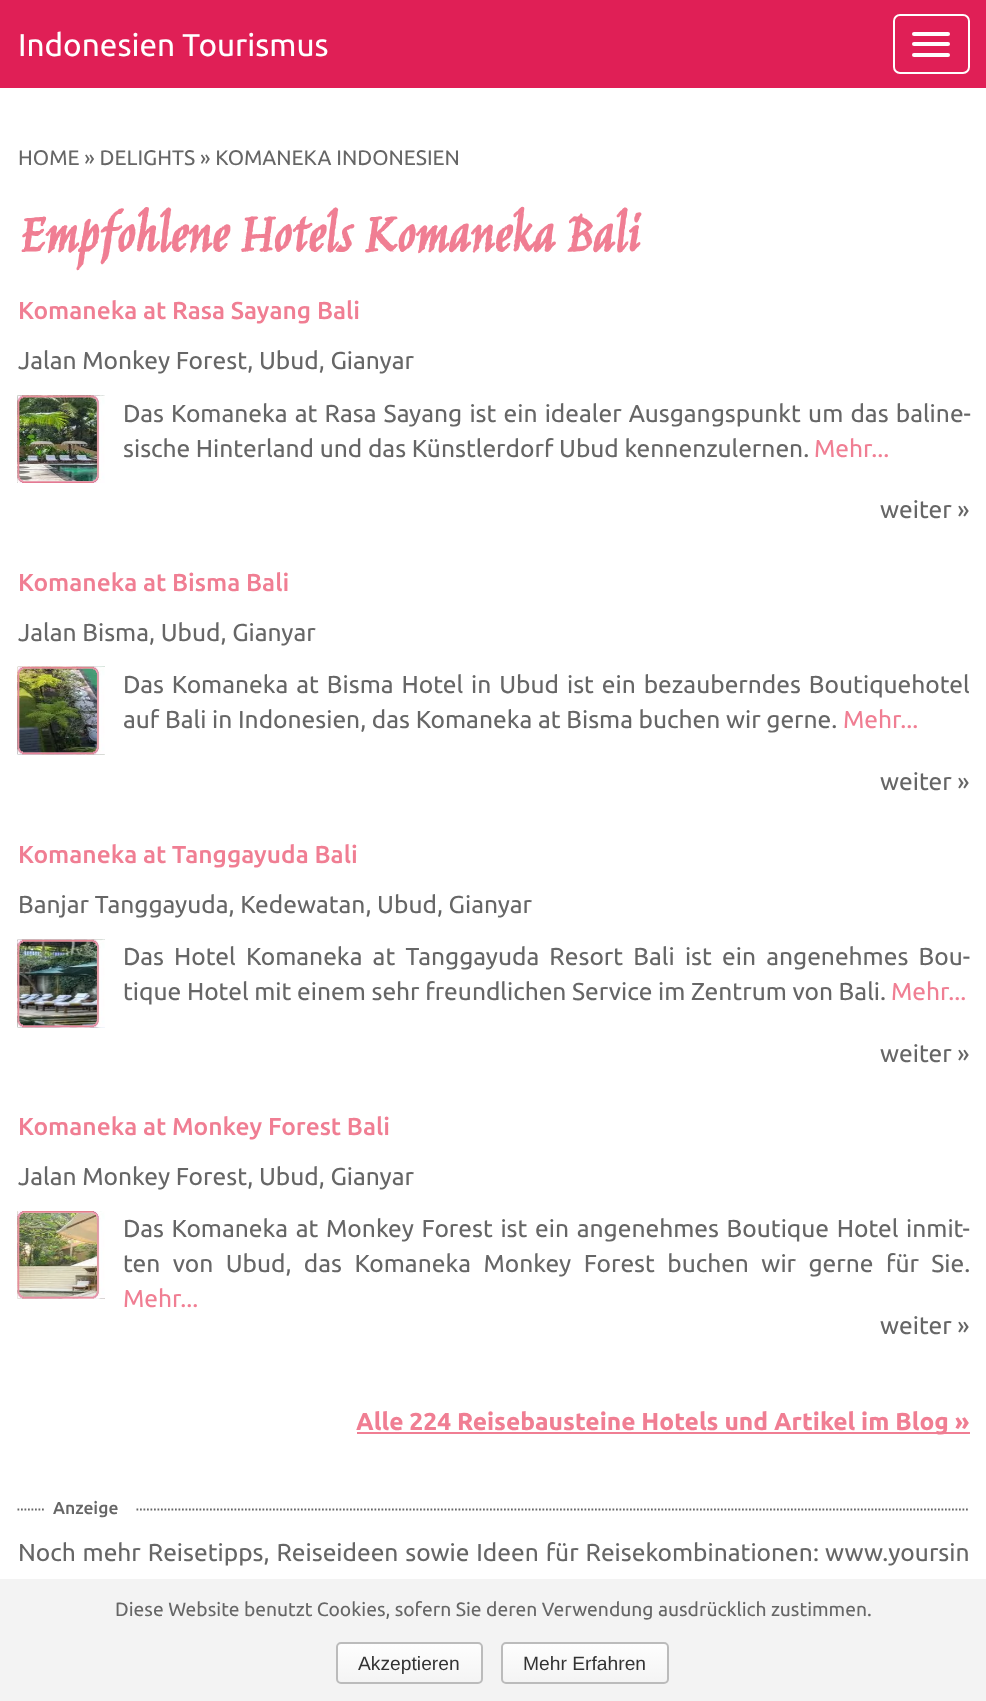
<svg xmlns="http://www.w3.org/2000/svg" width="986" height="1701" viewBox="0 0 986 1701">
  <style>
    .t1 { font: 31.5px Ubuntu; fill: #fff; }
    .t2 { font: 21px Ubuntu; fill: #666; }
    .t3 { font: bold 59.5px Jim Nightshade; fill: #f07e93; }
    .t4 { font: 500 24.5px Ubuntu; fill: #f07e93; }
    .t5 { font: 24.5px Ubuntu; fill: #666; }
    .t6 { font: 24.5px Ubuntu; fill: #f07e93; }
    .t7 { font: bold 24.5px Ubuntu; fill: #f07e93; }
    .t8 { font: 500 17.5px Ubuntu; fill: #666; }
    .t9 { font: 19.25px Ubuntu; fill: #666; }
    .t10 { font: 19.25px Liberation Sans; fill: #333; }
  </style>
  <defs>
    <clipPath id="clip1"><rect x="336" y="1642" width="147" height="42" rx="5"/></clipPath>
    <linearGradient id="g1" gradientUnits="userSpaceOnUse" x1="410" y1="1643" x2="410" y2="1682"><stop offset="0" stop-color="#fefefe"/><stop offset="1" stop-color="#f4f4f4"/></linearGradient>
    <clipPath id="clip2"><rect x="501" y="1642" width="168" height="42" rx="5"/></clipPath>
    <linearGradient id="g2" gradientUnits="userSpaceOnUse" x1="585" y1="1643" x2="585" y2="1682"><stop offset="0" stop-color="#fefefe"/><stop offset="1" stop-color="#f4f4f4"/></linearGradient>
  </defs>
  <rect width="100%" height="100%" fill="#fff"/>
  <rect x="0" y="0" width="986" height="88" fill="#e01f56"/>
  <text x="18" y="56" class="t1">Indonesien Tourismus</text>
  <rect x="894" y="15" width="75" height="58" rx="6" fill="none" stroke="#fff" stroke-width="2"/>
  <rect x="912" y="32" width="38" height="4" rx="2" fill="#fff"/>
  <rect x="912" y="42" width="38" height="4" rx="2" fill="#fff"/>
  <rect x="912" y="53" width="38" height="4" rx="2" fill="#fff"/>
  <text x="18" y="165" class="t2">HOME » DELIGHTS » KOMANEKA INDONESIEN</text>
  <text x="18" y="251" class="t3">Empfohlene Hotels Komaneka Bali</text>
  <text x="18" y="319" class="t4">Komaneka at Rasa Sayang Bali</text>
  <text x="18" y="369" class="t5">Jalan Monkey Forest, Ubud, Gianyar</text>
  <image x="17" y="395" width="88" height="88" href="images/1.png"/>
  <image x="17" y="395" width="88" height="88" href="images/2.png"/>
  <text x="123" y="422" word-spacing="1.5" class="t5">Das Komaneka at Rasa Sayang ist ein idealer Ausgangspunkt um das baline-</text>
  <text x="123" y="457" class="t5">sische Hinterland und das Künstlerdorf Ubud kennenzulernen.</text>
  <text x="814" y="457" class="t6">Mehr...</text>
  <text x="880" y="518" class="t5">weiter »</text>
  <text x="18" y="591" class="t4">Komaneka at Bisma Bali</text>
  <text x="18" y="641" class="t5">Jalan Bisma, Ubud, Gianyar</text>
  <image x="17" y="666" width="88" height="89" href="images/3.png"/>
  <image x="17" y="666" width="88" height="89" href="images/4.png"/>
  <text x="123" y="693" word-spacing="2.25" class="t5">Das Komaneka at Bisma Hotel in Ubud ist ein bezauberndes Boutiquehotel</text>
  <text x="123" y="728" class="t5">auf Bali in Indonesien, das Komaneka at Bisma buchen wir gerne.</text>
  <text x="843" y="728" class="t6">Mehr...</text>
  <text x="880" y="790" class="t5">weiter »</text>
  <text x="18" y="863" class="t4">Komaneka at Tanggayuda Bali</text>
  <text x="18" y="913" class="t5">Banjar Tanggayuda, Kedewatan, Ubud, Gianyar</text>
  <image x="17" y="939" width="88" height="89" href="images/5.png"/>
  <image x="17" y="939" width="88" height="89" href="images/6.png"/>
  <text x="123" y="965" word-spacing="4.5" class="t5">Das Hotel Komaneka at Tanggayuda Resort Bali ist ein angenehmes Bou-</text>
  <text x="123" y="1000" class="t5">tique Hotel mit einem sehr freundlichen Service im Zentrum von Bali.</text>
  <text x="891" y="1000" class="t6">Mehr...</text>
  <text x="880" y="1062" class="t5">weiter »</text>
  <text x="18" y="1135" class="t4">Komaneka at Monkey Forest Bali</text>
  <text x="18" y="1185" class="t5">Jalan Monkey Forest, Ubud, Gianyar</text>
  <image x="17" y="1211" width="88" height="88" href="images/7.png"/>
  <image x="17" y="1211" width="88" height="88" href="images/8.png"/>
  <text x="123" y="1237" word-spacing="2" class="t5">Das Komaneka at Monkey Forest ist ein angenehmes Boutique Hotel inmit-</text>
  <text x="123" y="1272" word-spacing="6.75" class="t5">ten von Ubud, das Komaneka Monkey Forest buchen wir gerne für Sie.</text>
  <text x="123" y="1307" class="t6">Mehr...</text>
  <text x="880" y="1334" class="t5">weiter »</text>
  <rect x="357" y="1432" width="613" height="2" fill="#f07e93"/>
  <text x="356" y="1430" class="t7">Alle 224 Reisebausteine Hotels und Artikel im Blog »</text>
  <path d="M17.5 1509.5H969.5" fill="none" stroke="#666" stroke-width="1.8" stroke-dasharray="1.75 1.75"/>
  <rect x="45" y="1508" width="90" height="3" fill="#fff"/>
  <text x="53" y="1514" class="t8">Anzeige</text>
  <text x="18" y="1561" word-spacing="1.25" class="t5">Noch mehr Reisetipps, Reiseideen sowie Ideen für Reisekombinationen:</text>
  <text x="825" y="1561" class="t5">www.yoursin</text>
  <rect x="0" y="1579" width="986" height="122" fill="#f3f3f3"/>
  <text x="115" y="1616" class="t9">Diese Website benutzt Cookies, sofern Sie deren Verwendung ausdrücklich zustimmen.</text>
  <g clip-path="url(#clip1)">
    <rect x="336" y="1643" width="147" height="39" fill="url(#g1)"/>
  </g>
  <rect x="337" y="1643" width="145" height="40" rx="4" fill="none" stroke="#bbb" stroke-width="2"/>
  <text x="358" y="1670" class="t10">Akzeptieren</text>
  <g clip-path="url(#clip2)">
    <rect x="501" y="1643" width="168" height="39" fill="url(#g2)"/>
  </g>
  <rect x="502" y="1643" width="166" height="40" rx="4" fill="none" stroke="#bbb" stroke-width="2"/>
  <text x="523" y="1670" class="t10">Mehr Erfahren</text>
</svg>
